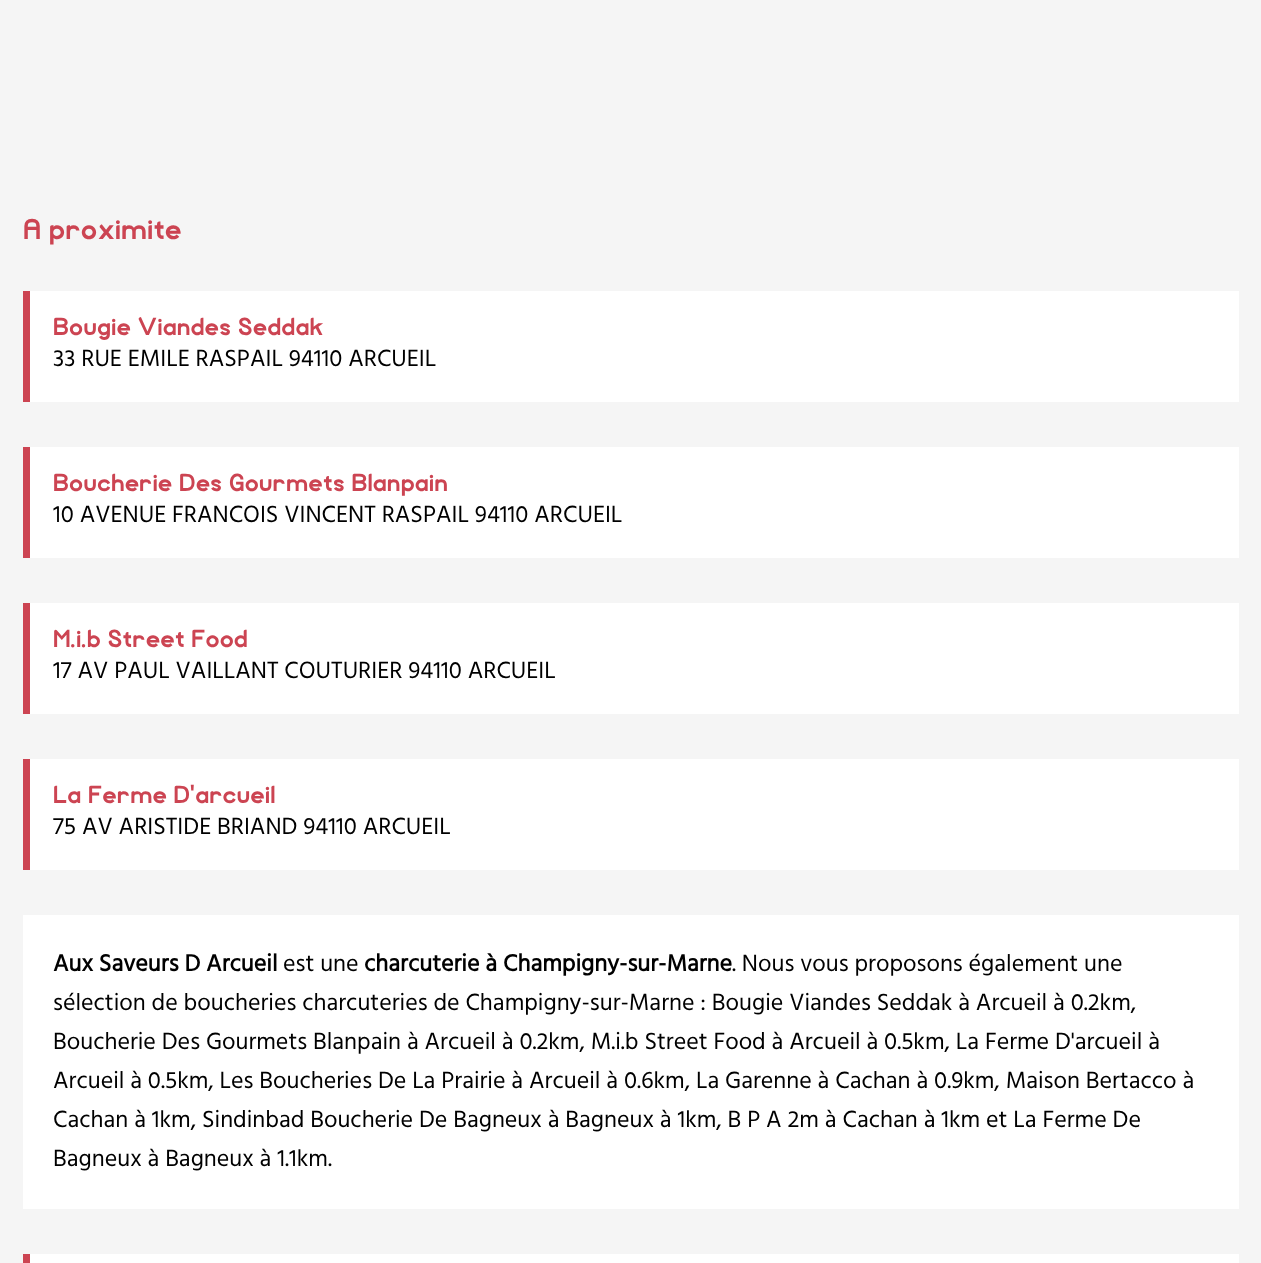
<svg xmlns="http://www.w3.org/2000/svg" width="1261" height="1263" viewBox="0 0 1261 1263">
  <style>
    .t1 { font: bold 28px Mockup; fill: #cc4452; }
    .t2 { font: bold 24px Mockup; fill: #cc4452; }
    .t3 { font: 24px Hind; fill: #000; }
    .t4 { font: bold 24px Hind; fill: #000; }
  </style>
  <rect width="100%" height="100%" fill="#f5f5f5"/>
  <text x="23" y="239" class="t1">A proximite</text>
  <rect x="30" y="291" width="1209" height="111" fill="#fff"/>
  <rect x="23" y="291" width="7" height="111" fill="#cc4452"/>
  <text x="53" y="335" class="t2">Bougie Viandes Seddak</text>
  <text x="53" y="366" class="t3">33 RUE EMILE RASPAIL 94110 ARCUEIL</text>
  <rect x="30" y="447" width="1209" height="111" fill="#fff"/>
  <rect x="23" y="447" width="7" height="111" fill="#cc4452"/>
  <text x="53" y="491" class="t2">Boucherie Des Gourmets Blanpain</text>
  <text x="53" y="522" class="t3">10 AVENUE FRANCOIS VINCENT RASPAIL 94110 ARCUEIL</text>
  <rect x="30" y="603" width="1209" height="111" fill="#fff"/>
  <rect x="23" y="603" width="7" height="111" fill="#cc4452"/>
  <text x="53" y="647" class="t2">M.i.b Street Food</text>
  <text x="53" y="678" class="t3">17 AV PAUL VAILLANT COUTURIER 94110 ARCUEIL</text>
  <rect x="30" y="759" width="1209" height="111" fill="#fff"/>
  <rect x="23" y="759" width="7" height="111" fill="#cc4452"/>
  <text x="53" y="803" class="t2">La Ferme D'arcueil</text>
  <text x="53" y="834" class="t3">75 AV ARISTIDE BRIAND 94110 ARCUEIL</text>
  <rect x="23" y="915" width="1216" height="294" fill="#fff"/>
  <text x="53" y="971" class="t4">Aux Saveurs D Arcueil</text>
  <text x="283" y="971" class="t3">est une</text>
  <text x="364" y="971" class="t4">charcuterie à Champigny-sur-Marne</text>
  <text x="732" y="971" class="t3">. Nous vous proposons également une</text>
  <text x="53" y="1010" class="t3">sélection de boucheries charcuteries de Champigny-sur-Marne : Bougie Viandes Seddak à Arcueil à 0.2km,</text>
  <text x="53" y="1049" class="t3">Boucherie Des Gourmets Blanpain à Arcueil à 0.2km, M.i.b Street Food à Arcueil à 0.5km, La Ferme D'arcueil à</text>
  <text x="53" y="1088" class="t3">Arcueil à 0.5km, Les Boucheries De La Prairie à Arcueil à 0.6km, La Garenne à Cachan à 0.9km, Maison Bertacco à</text>
  <text x="53" y="1127" class="t3">Cachan à 1km, Sindinbad Boucherie De Bagneux à Bagneux à 1km, B P A 2m à Cachan à 1km et La Ferme De</text>
  <text x="53" y="1166" class="t3">Bagneux à Bagneux à 1.1km.</text>
  <rect x="30" y="1254" width="1209" height="9" fill="#fff"/>
  <rect x="23" y="1254" width="7" height="9" fill="#cc4452"/>
</svg>
